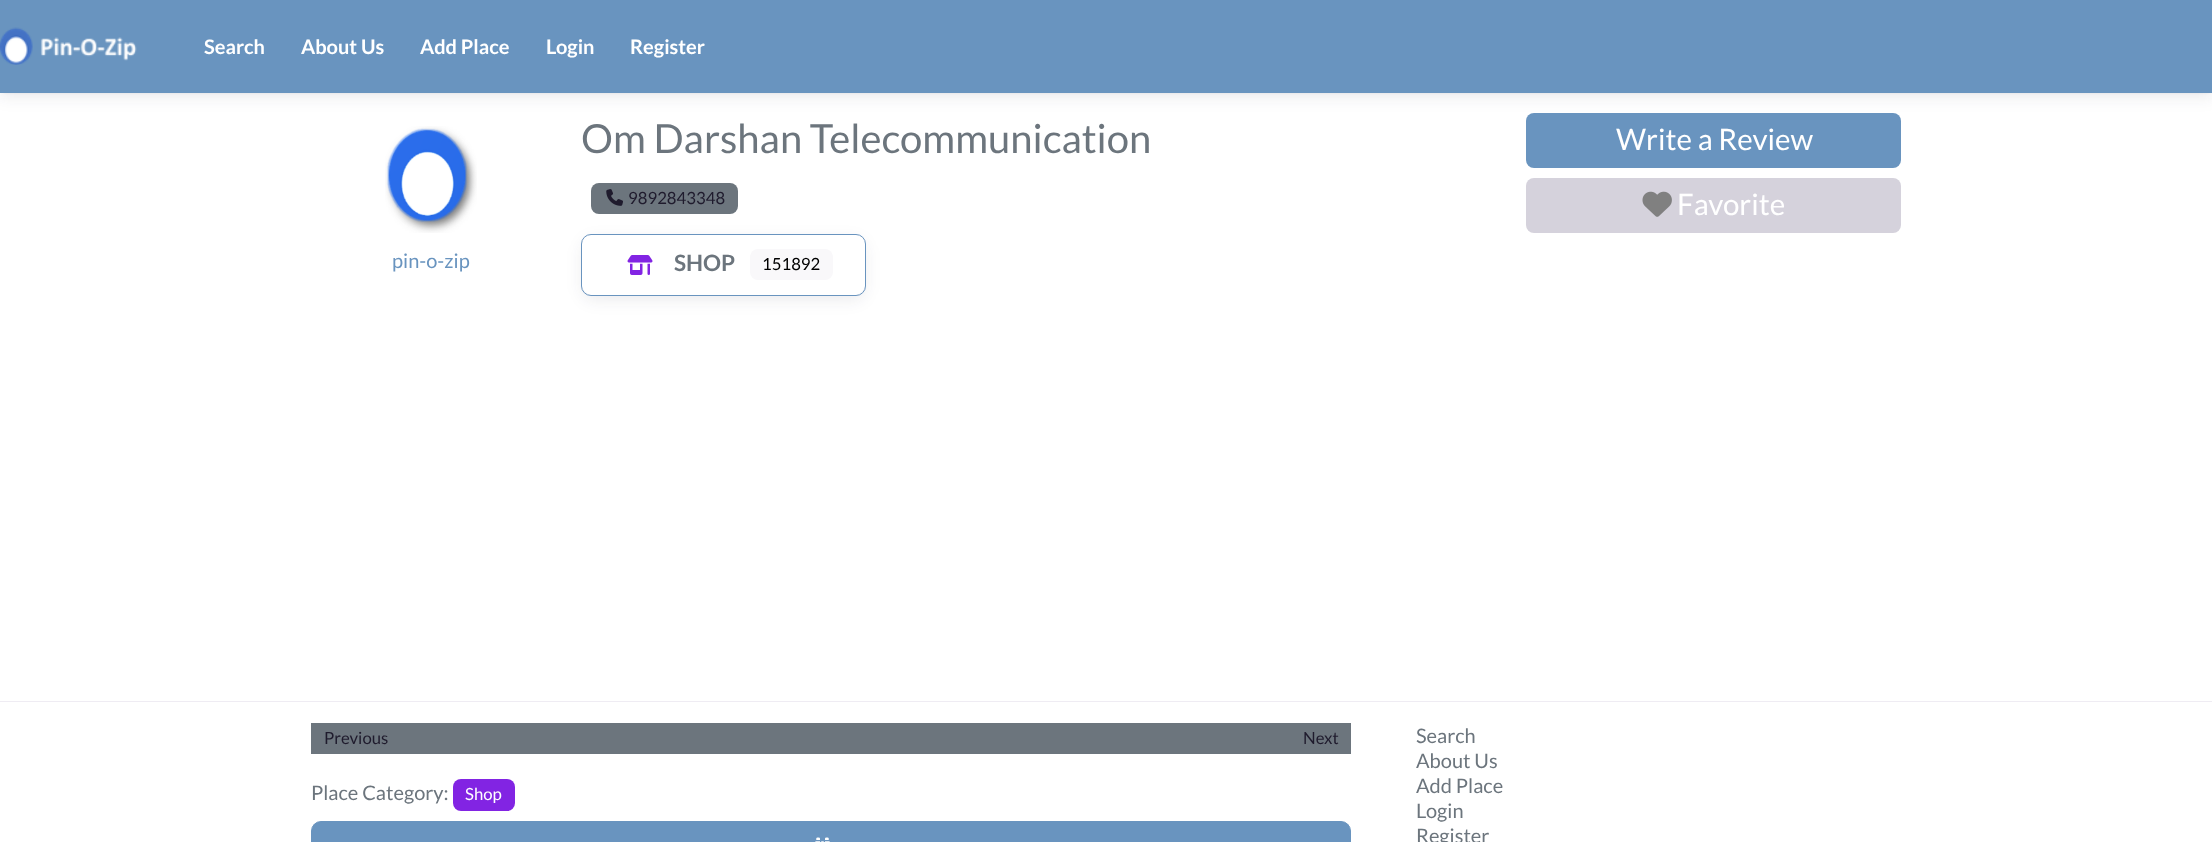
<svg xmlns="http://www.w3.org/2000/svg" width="2212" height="842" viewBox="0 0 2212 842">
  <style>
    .t1 { font: bold 20px Lato; fill: #fff; }
    .t2 { font: 40px Lato; fill: #6c757d; }
    .t3 { font: 16.75px Lato; fill: #1f1b2d; }
    .t4 { font: bold 22.5px Lato; fill: #6c757d; }
    .t5 { font: 16.75px Lato; fill: #000; }
    .t6 { font: 29.5px Lato; fill: #fff; }
    .t7 { font: 20px Lato; fill: #6994bf; }
    .t8 { font: 20px Lato; fill: #6c757d; }
    .t9 { font: 16.75px Lato; fill: #fff; }
  </style>
  <defs>
    <clipPath id="clip1"><path d="M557 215H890V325H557ZM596 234H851C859.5 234 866 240.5 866 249V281C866 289.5 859.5 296 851 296H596C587.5 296 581 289.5 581 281V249C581 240.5 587.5 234 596 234Z" clip-rule="evenodd"/></clipPath>
  </defs>
  <rect width="100%" height="100%" fill="#fff"/>
  <rect x="0" y="5" width="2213" height="93" fill="#1f1b2d14" filter="blur(7.5px)"/>
  <rect x="3" y="5" width="2207" height="88" fill="#1f1b2d14" filter="blur(1px)"/>
  <rect x="0" y="0" width="2212" height="93" fill="#6994bf"/>
  <image x="0" y="27" width="137" height="38" href="images/1.png"/>
  <text x="204" y="54" class="t1">Search</text>
  <text x="301" y="54" class="t1">About Us</text>
  <text x="420" y="54" class="t1">Add Place</text>
  <text x="546" y="54" class="t1">Login</text>
  <text x="630" y="54" class="t1">Register</text>
  <rect x="0" y="701" width="2212" height="1" fill="#efecf3"/>
  <text x="581" y="153" class="t2">Om Darshan Telecommunication</text>
  <rect x="591" y="183" width="147" height="31" rx="8" fill="#6c757d"/>
  <image x="606" y="189" width="17" height="17" href="images/2.png"/>
  <text x="628" y="204" class="t3">9892843348</text>
  <g clip-path="url(#clip1)">
    <rect x="581" y="239" width="285" height="62" rx="15" fill="#1f1b2d14" filter="blur(7.5px)"/>
  </g>
  <rect x="581.5" y="234.5" width="284" height="61" rx="9.5" fill="none" stroke="#6994bf"/>
  <image x="627" y="255" width="26" height="20" href="images/3.png"/>
  <text x="674" y="271" class="t4">SHOP</text>
  <rect x="750" y="249" width="83" height="31" rx="8" fill="#f9f8fa"/>
  <text x="762" y="270" class="t5">151892</text>
  <rect x="1526" y="113" width="375" height="55" rx="8" fill="#6994bf"/>
  <text x="1616" y="150" class="t6">Write a Review</text>
  <rect x="1526" y="178" width="375" height="55" rx="8" fill="#d5d2dc"/>
  <image x="1642" y="191" width="30" height="26" href="images/4.png"/>
  <text x="1677" y="215" class="t6">Favorite</text>
  <image x="385" y="126" width="92" height="107" href="images/5.png"/>
  <text x="392" y="268" class="t7">pin-o-zip</text>
  <rect x="311" y="723" width="1040" height="31" fill="#6c757d"/>
  <text x="324" y="744" class="t3">Previous</text>
  <text x="1303" y="744" class="t3">Next</text>
  <text x="311" y="800" class="t8">Place Category:</text>
  <rect x="453" y="779" width="62" height="32" rx="8" fill="#8224e3"/>
  <text x="465" y="800" class="t9">Shop</text>
  <rect x="311.5" y="821.5" width="1039" height="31" rx="9.5" fill="#6994bf" stroke="#6994bf"/>
  <image x="815" y="837" width="15" height="5" href="images/6.png"/>
  <text x="1416" y="743" class="t8">Search</text>
  <text x="1416" y="768" class="t8">About Us</text>
  <text x="1416" y="793" class="t8">Add Place</text>
  <text x="1416" y="818" class="t8">Login</text>
  <text x="1416" y="843" class="t8">Register</text>
</svg>
